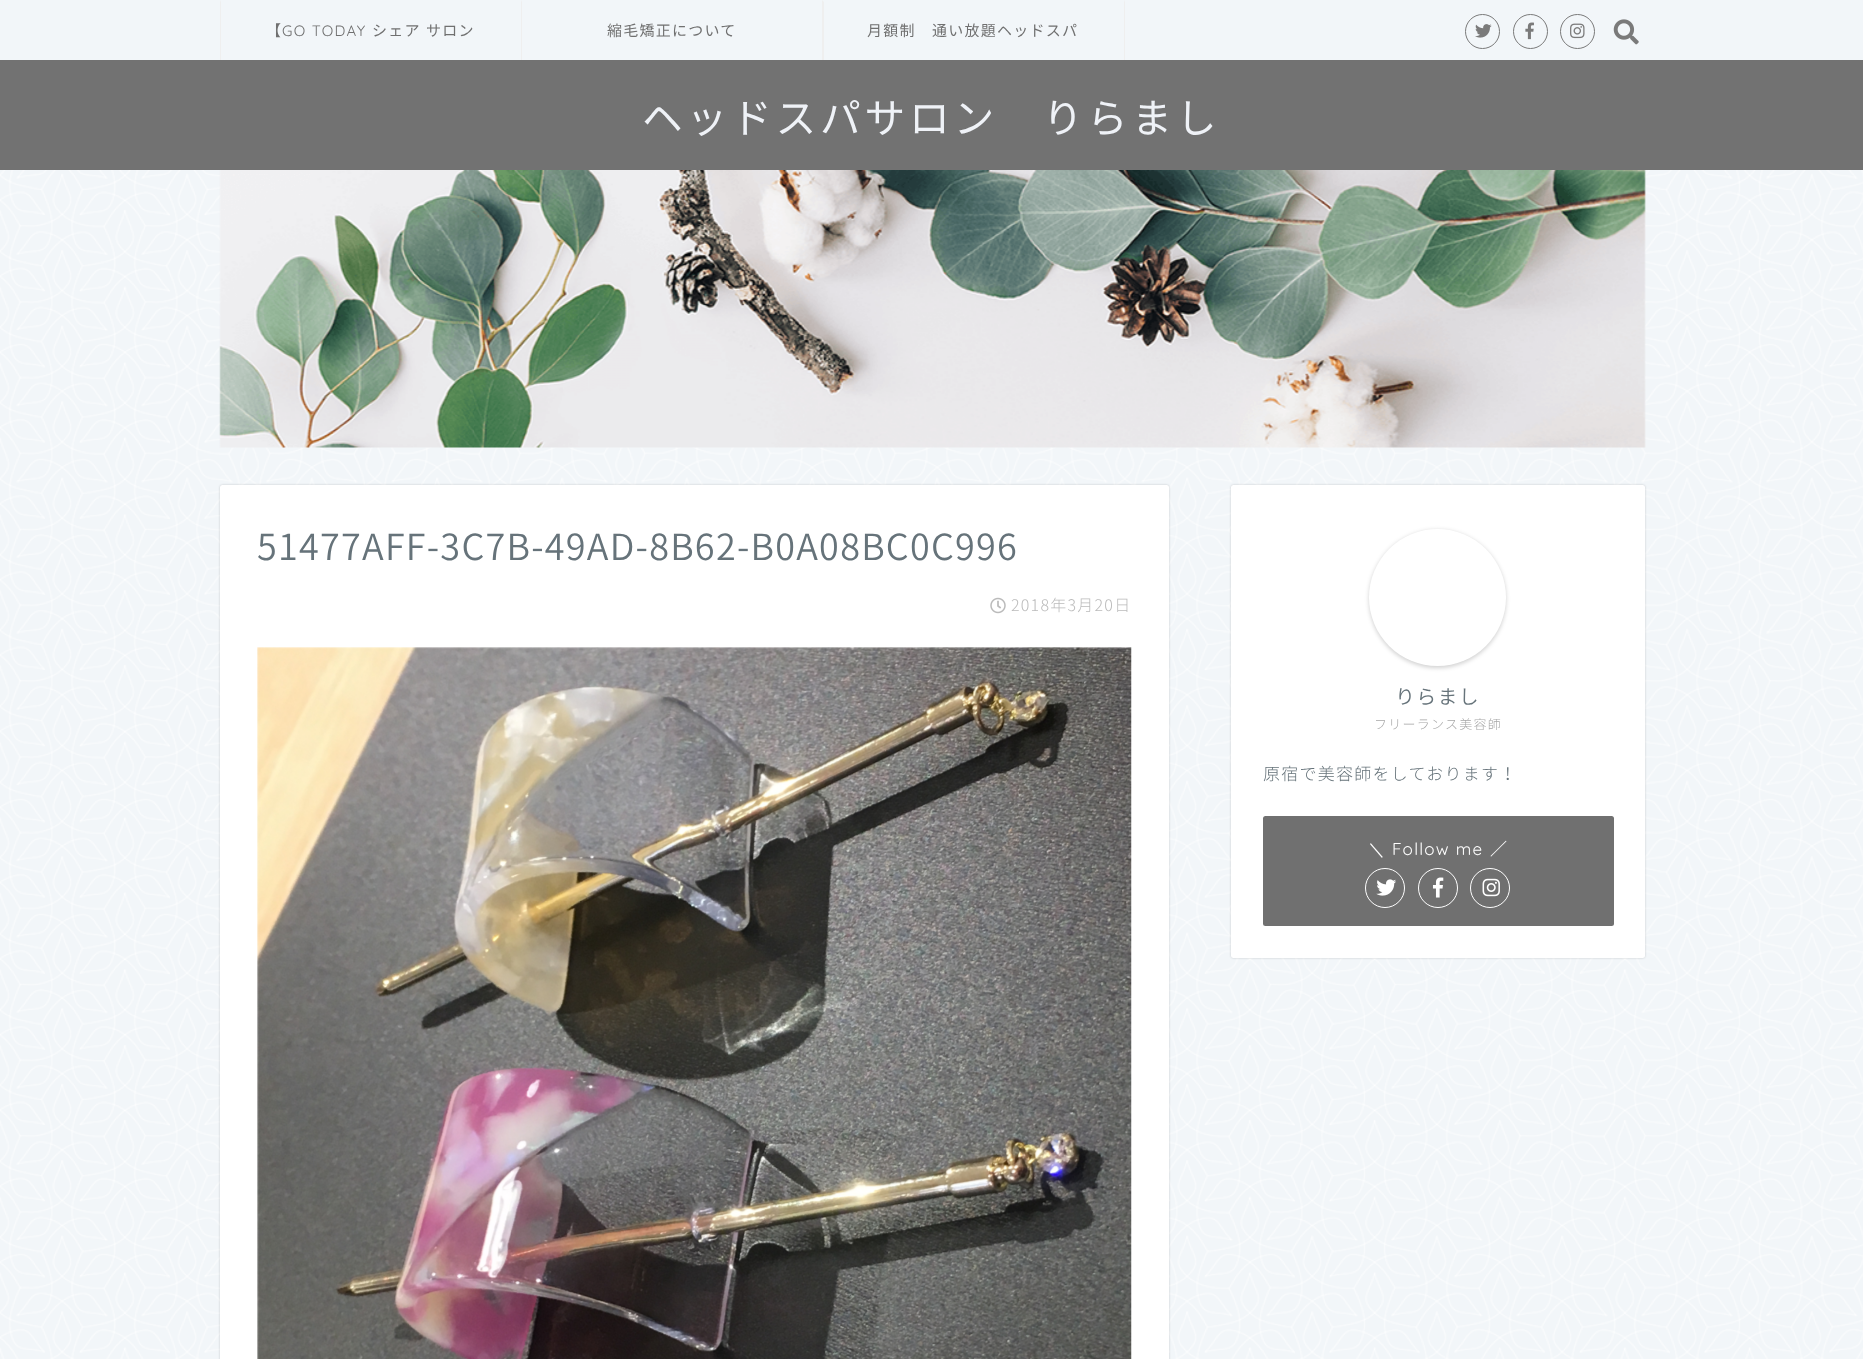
<svg xmlns="http://www.w3.org/2000/svg" width="1863" height="1359" viewBox="0 0 1863 1359">
  <style>
    .t1 { font: 15px Noto Sans JP; letter-spacing: 1.25px; fill: #707070; }
    .t2 { font: 300 15px Quicksand; letter-spacing: 1.25px; fill: #707070; }
    .t3 { font: 40.75px Noto Sans JP; letter-spacing: 3.75px; fill: #eff2f7; }
    .t4 { font: 300 36px Noto Sans JP; letter-spacing: 1.25px; fill: #66737a; }
    .t5 { font: 300 16px 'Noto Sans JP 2'; letter-spacing: 1.25px; fill: #bbb; }
    .t6 { font: 300 20px Noto Sans JP; letter-spacing: 1.25px; fill: #66737a; }
    .t7 { font: 300 13px 'Noto Sans JP 2'; letter-spacing: 1.25px; fill: #a6a6a6; }
    .t8 { font: 300 17px 'Noto Sans JP 2'; letter-spacing: 1.25px; fill: #66737a; }
    .t9 { font: 500 17px WenQuanYi Zen Hei; letter-spacing: 1.25px; fill: #fff; }
    .t10 { font: 300 17px Quicksand; letter-spacing: 1.25px; fill: #fff; }
    .t11 { font: 17px Noto Sans JP; letter-spacing: 1.25px; fill: #fff; }
  </style>
  <rect width="100%" height="100%" fill="#f2f6f9"/>
  <image x="0" y="170" width="1863" height="1189" href="images/1.png"/>
  <path d="M220 60V0L221 2V60Z" fill="#efefef"/>
  <text x="266" y="36" class="t1">【</text>
  <text x="282" y="36" class="t2">GO TODAY</text>
  <text x="372" y="36" class="t1">シェア</text>
  <text x="426" y="36" class="t1">サロン</text>
  <path d="M521 60V0L522 2V60Z" fill="#efefef"/>
  <text x="607" y="36" class="t1">縮毛矯正について</text>
  <path d="M1125 0V60H1124V2Z" fill="#efefef"/>
  <path d="M822 60V0L824 2V60Z" fill="#efefef"/>
  <text x="867" y="36" class="t1">月額制　通い放題ヘッドスパ</text>
  <circle cx="1482.5" cy="31.5" r="17" fill="none" stroke="#7a7a7a"/>
  <image x="1475" y="24" width="17" height="14" href="images/2.png"/>
  <circle cx="1530.5" cy="31.5" r="17" fill="none" stroke="#7a7a7a"/>
  <image x="1525" y="22" width="9" height="18" href="images/3.png"/>
  <circle cx="1577.5" cy="31.5" r="17" fill="none" stroke="#7a7a7a"/>
  <image x="1570" y="23" width="15" height="16" href="images/4.png"/>
  <image x="1613" y="19" width="26" height="26" href="images/5.png"/>
  <rect x="0" y="60" width="1863" height="110" fill="#727272"/>
  <text x="642" y="133" class="t3">ヘッドスパサロン　りらまし</text>
  <image x="219" y="170" width="1427" height="278" href="images/6.png"/>
  <rect x="220" y="485" width="949" height="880" rx="2.5" fill="#0000002e" filter="blur(1px)"/>
  <rect x="220" y="485" width="949" height="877" rx="2.5" fill="#fff"/>
  <text x="257" y="560" class="t4">51477AFF-3C7B-49AD-8B62-B0A08BC0C996</text>
  <image x="990" y="597" width="16" height="17" href="images/7.png"/>
  <text x="1011" y="611" class="t5">2018年3月20日</text>
  <image x="257" y="647" width="875" height="712" href="images/8.png"/>
  <rect x="1231" y="485" width="414" height="473" rx="2.5" fill="#0000002e" filter="blur(1px)"/>
  <rect x="1231" y="485" width="414" height="473" rx="2.5" fill="#fff"/>
  <rect x="1369" y="530" width="137" height="138" rx="68.5" fill="#0000002e" filter="blur(2px)"/>
  <circle cx="1437.5" cy="597.5" r="68.5" fill="#fff"/>
  <text x="1395" y="704" class="t6">りらまし</text>
  <text x="1374" y="729" class="t7">フリーランス美容師</text>
  <text x="1263" y="780" class="t8">原宿で美容師をしております！</text>
  <rect x="1263" y="816" width="351" height="110" rx="2.5" fill="#707070"/>
  <text x="1368" y="855" class="t9">＼</text>
  <text x="1392" y="855" class="t10">Follow me</text>
  <text x="1490" y="855" class="t11">／</text>
  <circle cx="1385" cy="888" r="19.5" fill="none" stroke="#fff"/>
  <image x="1376" y="879" width="20" height="17" href="images/9.png"/>
  <circle cx="1438" cy="888" r="19.5" fill="none" stroke="#fff"/>
  <image x="1432" y="877" width="12" height="21" href="images/10.png"/>
  <circle cx="1490" cy="888" r="19.5" fill="none" stroke="#fff"/>
  <image x="1482" y="878" width="18" height="19" href="images/11.png"/>
</svg>
